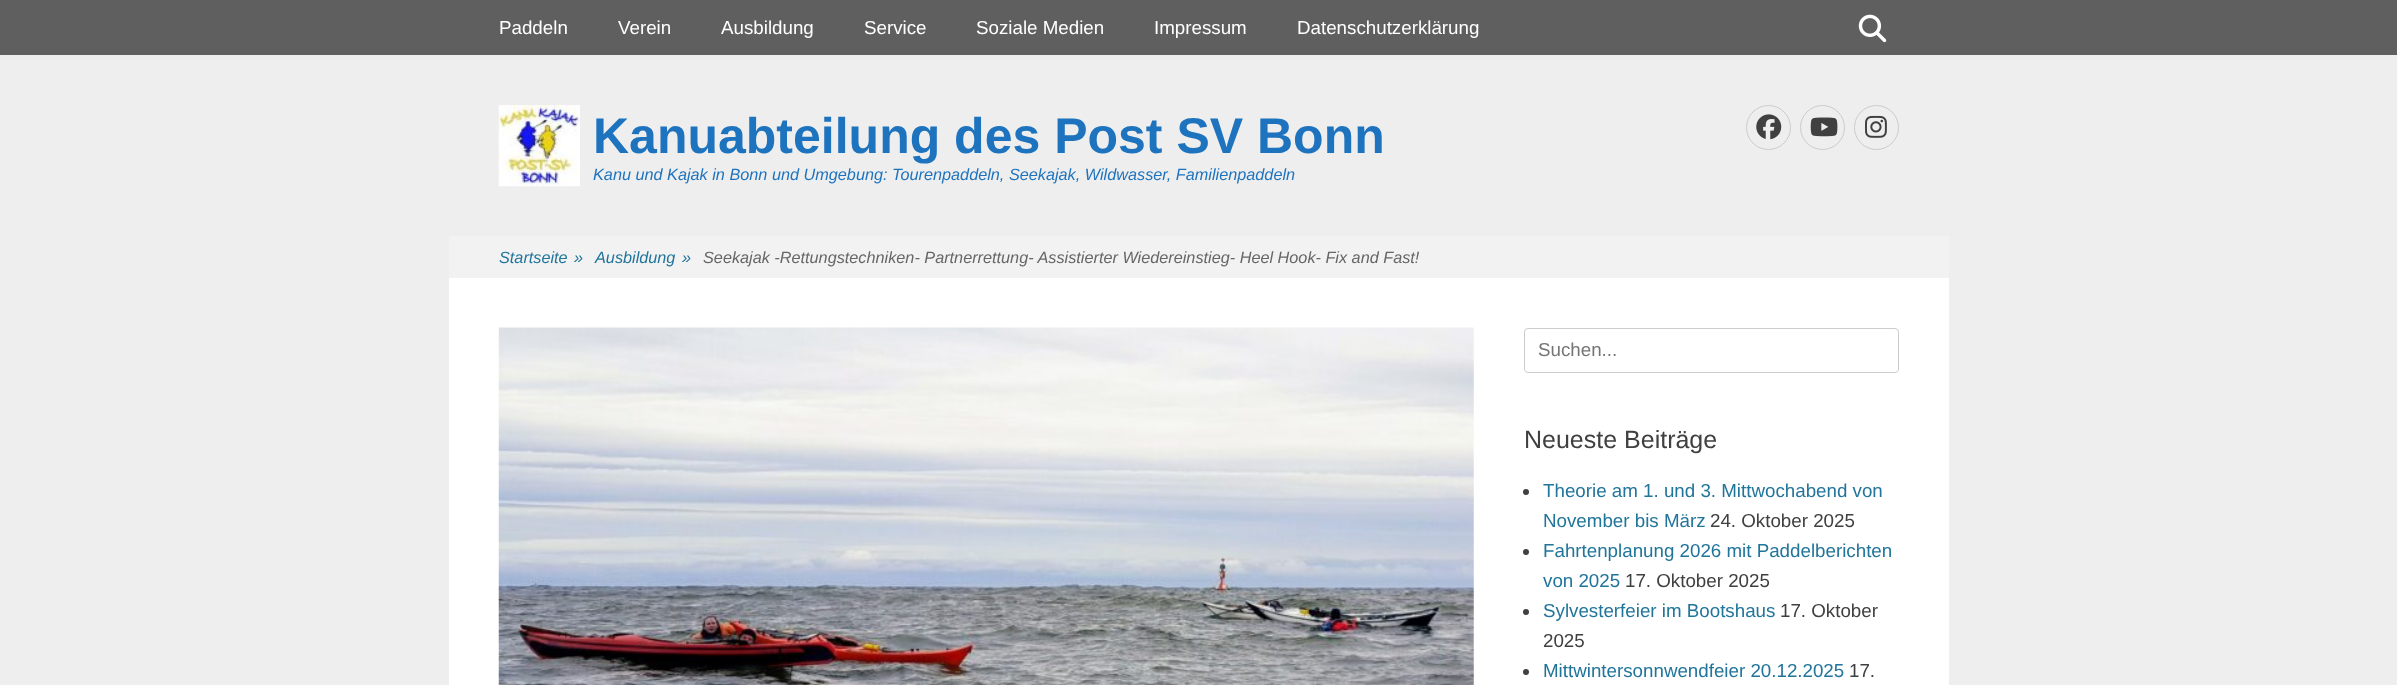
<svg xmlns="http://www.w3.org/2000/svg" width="2397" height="685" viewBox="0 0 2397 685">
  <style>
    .t1 { font: 18.75px Liberation Sans; fill: #fff; }
    .t2 { font: bold 50px Liberation Sans; fill: #1e73be; }
    .t3 { font: italic 16.25px Liberation Sans; fill: #1e73be; }
    .t4 { font: italic 16.25px Liberation Sans; fill: #21759b; }
    .t5 { font: italic 16.25px Liberation Sans; fill: #666; }
    .t6 { font: 18.75px Liberation Sans; fill: #757575; }
    .t7 { font: 25px Liberation Sans; fill: #404040; }
    .t8 { font: 18.75px Liberation Sans; fill: #21759b; }
    .t9 { font: 18.75px Liberation Sans; fill: #404040; }
  </style>
  <rect width="100%" height="100%" fill="#eee"/>
  <rect x="0" y="0" width="2397" height="55" fill="#5f5f5f"/>
  <text x="499" y="34" class="t1">Paddeln</text>
  <text x="618" y="34" class="t1">Verein</text>
  <text x="721" y="34" class="t1">Ausbildung</text>
  <text x="864" y="34" class="t1">Service</text>
  <text x="976" y="34" class="t1">Soziale Medien</text>
  <text x="1154" y="34" class="t1">Impressum</text>
  <text x="1297" y="34" class="t1">Datenschutzerklärung</text>
  <image x="1858" y="14" width="29" height="29" href="images/1.png"/>
  <image x="498" y="105" width="82" height="82" href="images/2.png"/>
  <text x="593" y="153" class="t2">Kanuabteilung des Post SV Bonn</text>
  <text x="593" y="180" class="t3">Kanu und Kajak in Bonn und Umgebung: Tourenpaddeln, Seekajak, Wildwasser, Familienpaddeln</text>
  <circle cx="1768.5" cy="127.5" r="22" fill="none" stroke="#ccc"/>
  <image x="1756" y="114" width="26" height="26" href="images/3.png"/>
  <circle cx="1822.5" cy="127.5" r="22" fill="none" stroke="#ccc"/>
  <image x="1810" y="117" width="28" height="20" href="images/4.png"/>
  <circle cx="1876.5" cy="127.5" r="22" fill="none" stroke="#ccc"/>
  <image x="1865" y="115" width="22" height="23" href="images/5.png"/>
  <rect x="449" y="236" width="1500" height="42" fill="#f2f2f2"/>
  <text x="499" y="263" class="t4">Startseite</text>
  <text x="574" y="263" class="t4">»</text>
  <text x="595" y="263" class="t4">Ausbildung</text>
  <text x="682" y="263" class="t4">»</text>
  <text x="703" y="263" class="t5">Seekajak -Rettungstechniken- Partnerrettung- Assistierter Wiedereinstieg- Heel Hook- Fix and Fast!</text>
  <rect x="449" y="278" width="1500" height="407" fill="#fff"/>
  <image x="498" y="327" width="976" height="358" href="images/6.png"/>
  <rect x="1524.5" y="328.5" width="374" height="44" rx="3.5" fill="none" stroke="#ccc"/>
  <text x="1538" y="356" class="t6">Suchen...</text>
  <text x="1524" y="448" class="t7">Neueste Beiträge</text>
  <circle cx="1526" cy="492" r="3" fill="#404040"/>
  <text x="1543" y="497" class="t8">Theorie am 1. und 3. Mittwochabend von</text>
  <text x="1543" y="527" class="t8">November bis März</text>
  <text x="1710" y="527" class="t9">24. Oktober 2025</text>
  <circle cx="1526" cy="552" r="3" fill="#404040"/>
  <text x="1543" y="557" class="t8">Fahrtenplanung 2026 mit Paddelberichten</text>
  <text x="1543" y="587" class="t8">von 2025</text>
  <text x="1625" y="587" class="t9">17. Oktober 2025</text>
  <circle cx="1526" cy="612" r="3" fill="#404040"/>
  <text x="1543" y="617" class="t8">Sylvesterfeier im Bootshaus</text>
  <text x="1780" y="617" class="t9">17. Oktober</text>
  <text x="1543" y="647" class="t9">2025</text>
  <circle cx="1526" cy="672" r="3" fill="#404040"/>
  <text x="1543" y="677" class="t8">Mittwintersonnwendfeier 20.12.2025</text>
  <text x="1849" y="677" class="t9">17.</text>
</svg>
